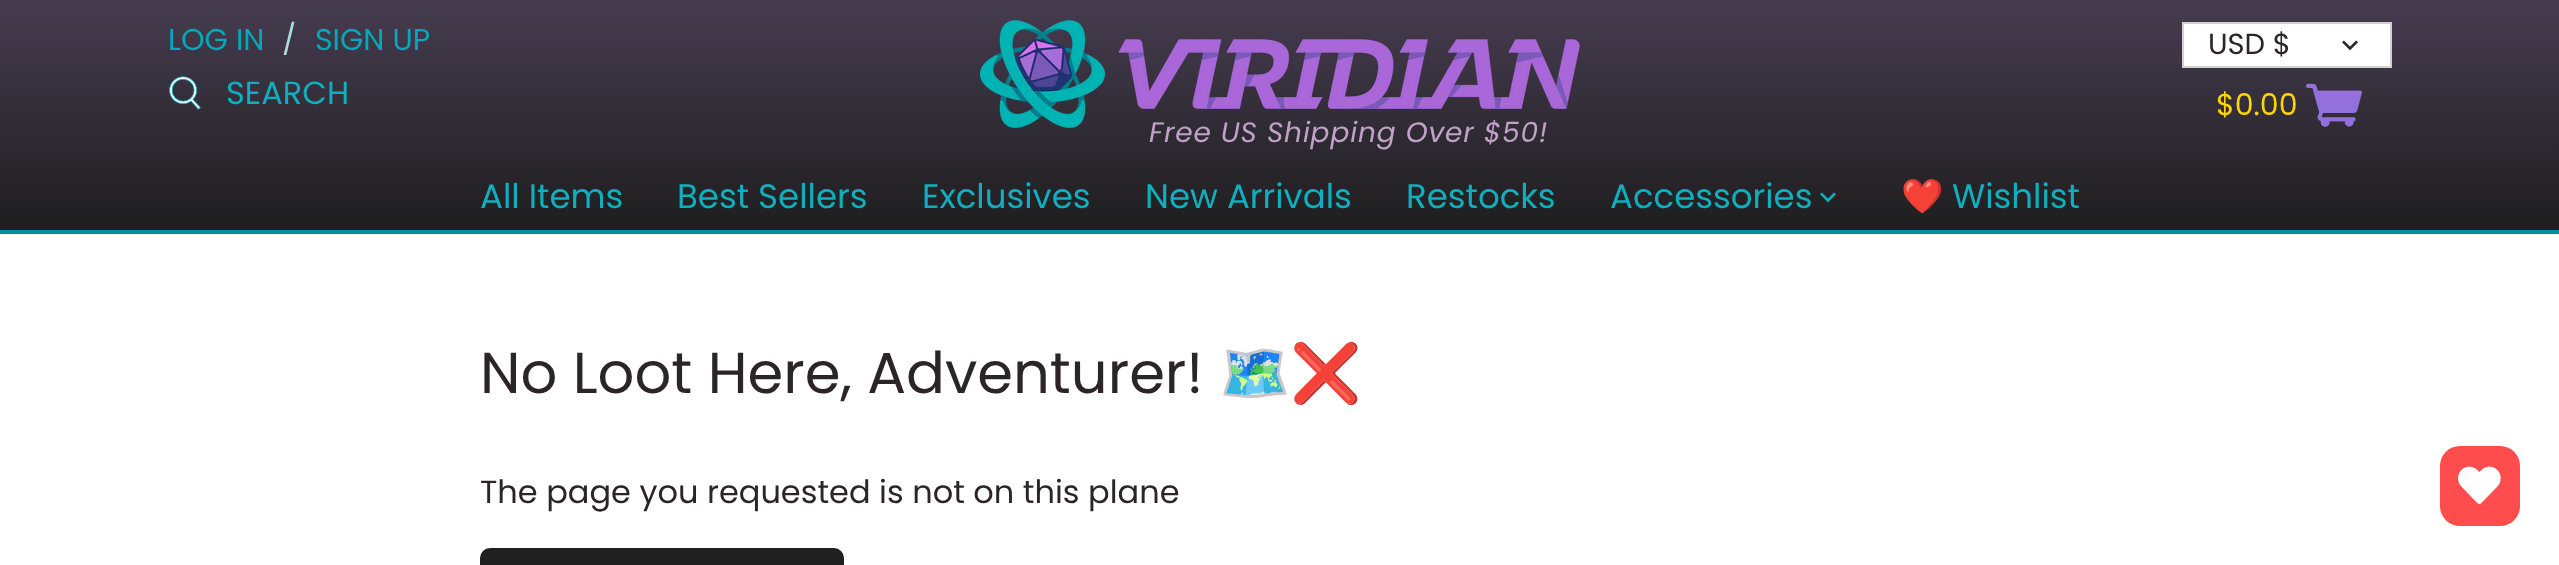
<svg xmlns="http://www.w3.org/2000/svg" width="2559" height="565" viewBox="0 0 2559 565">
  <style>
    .t1 { font: 30px Poppins; fill: #0ab; }
    .t2 { font: 30px Poppins; fill: #add; }
    .t3 { font: 32px Poppins; fill: #0fafbf; }
    .t4 { font: 29px Poppins; fill: #2c2528; }
    .t5 { font: 30px Poppins; fill: #ffd700; }
    .t6 { font: italic 28px Poppins; letter-spacing: 0.85px; fill: #c1a1c7; }
    .t7 { font: 34px Poppins; fill: #0fafbf; }
    .t8 { font: 34px Noto Color Emoji; fill: #0fafbf; }
    .t9 { font: 57.6px Poppins; fill: #2c2528; }
    .t10 { font: 57.6px Noto Color Emoji; fill: #2c2528; }
    .t11 { font: 32px Poppins; fill: #2c2528; }
  </style>
  <defs>
    <linearGradient id="g1" gradientUnits="userSpaceOnUse" x1="1280" y1="0" x2="1280" y2="230"><stop offset="0" stop-color="#463c50"/><stop offset="1" stop-color="#1e1e1e"/></linearGradient>
  </defs>
  <rect width="100%" height="100%" fill="#fff"/>
  <rect x="0" y="0" width="2559" height="230" fill="url(#g1)"/>
  <rect x="0" y="230" width="2559" height="4" fill="#0090a0"/>
  <text x="168" y="50" class="t1">LOG IN</text>
  <text x="282" y="50" class="t2">/</text>
  <text x="315" y="50" class="t1">SIGN UP</text>
  <image x="169" y="76" width="32" height="34" href="images/1.png"/>
  <text x="226" y="104" class="t3">SEARCH</text>
  <rect x="2183" y="23" width="208" height="44" fill="#fff" stroke="#d3d1d2" stroke-width="2"/>
  <text x="2208" y="54" class="t4">USD $</text>
  <image x="2342" y="40" width="16" height="11" href="images/2.png"/>
  <text x="2216" y="115" class="t5">$0.00</text>
  <image x="2306" y="83" width="56" height="44" href="images/3.png"/>
  <text x="1149" y="142" class="t6">Free US Shipping Over $50!</text>
  <image x="980" y="20" width="600" height="108" href="images/4.png"/>
  <text x="480" y="208" class="t7">All Items</text>
  <text x="677" y="208" class="t7">Best Sellers</text>
  <text x="922" y="208" class="t7">Exclusives</text>
  <text x="1145" y="208" class="t7">New Arrivals</text>
  <text x="1406" y="208" class="t7">Restocks</text>
  <text x="1610" y="208" class="t7">Accessories</text>
  <image x="1820" y="192" width="16" height="11" href="images/5.png"/>
  <text x="1901" y="208" class="t8">❤️</text>
  <text x="1952" y="208" class="t7">Wishlist</text>
  <text x="480" y="393" class="t9">No Loot Here, Adventurer!</text>
  <text x="1219" y="393" class="t10">🗺️❌</text>
  <text x="480" y="503" class="t11">The page you requested is not on this plane</text>
  <rect x="482" y="550" width="360" height="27" rx="8" fill="#202020" stroke="#202020" stroke-width="4"/>
  <rect x="2440" y="446" width="80" height="80" rx="20" fill="#ff4d4d"/>
  <image x="2458" y="466" width="43" height="38" href="images/6.png"/>
</svg>
